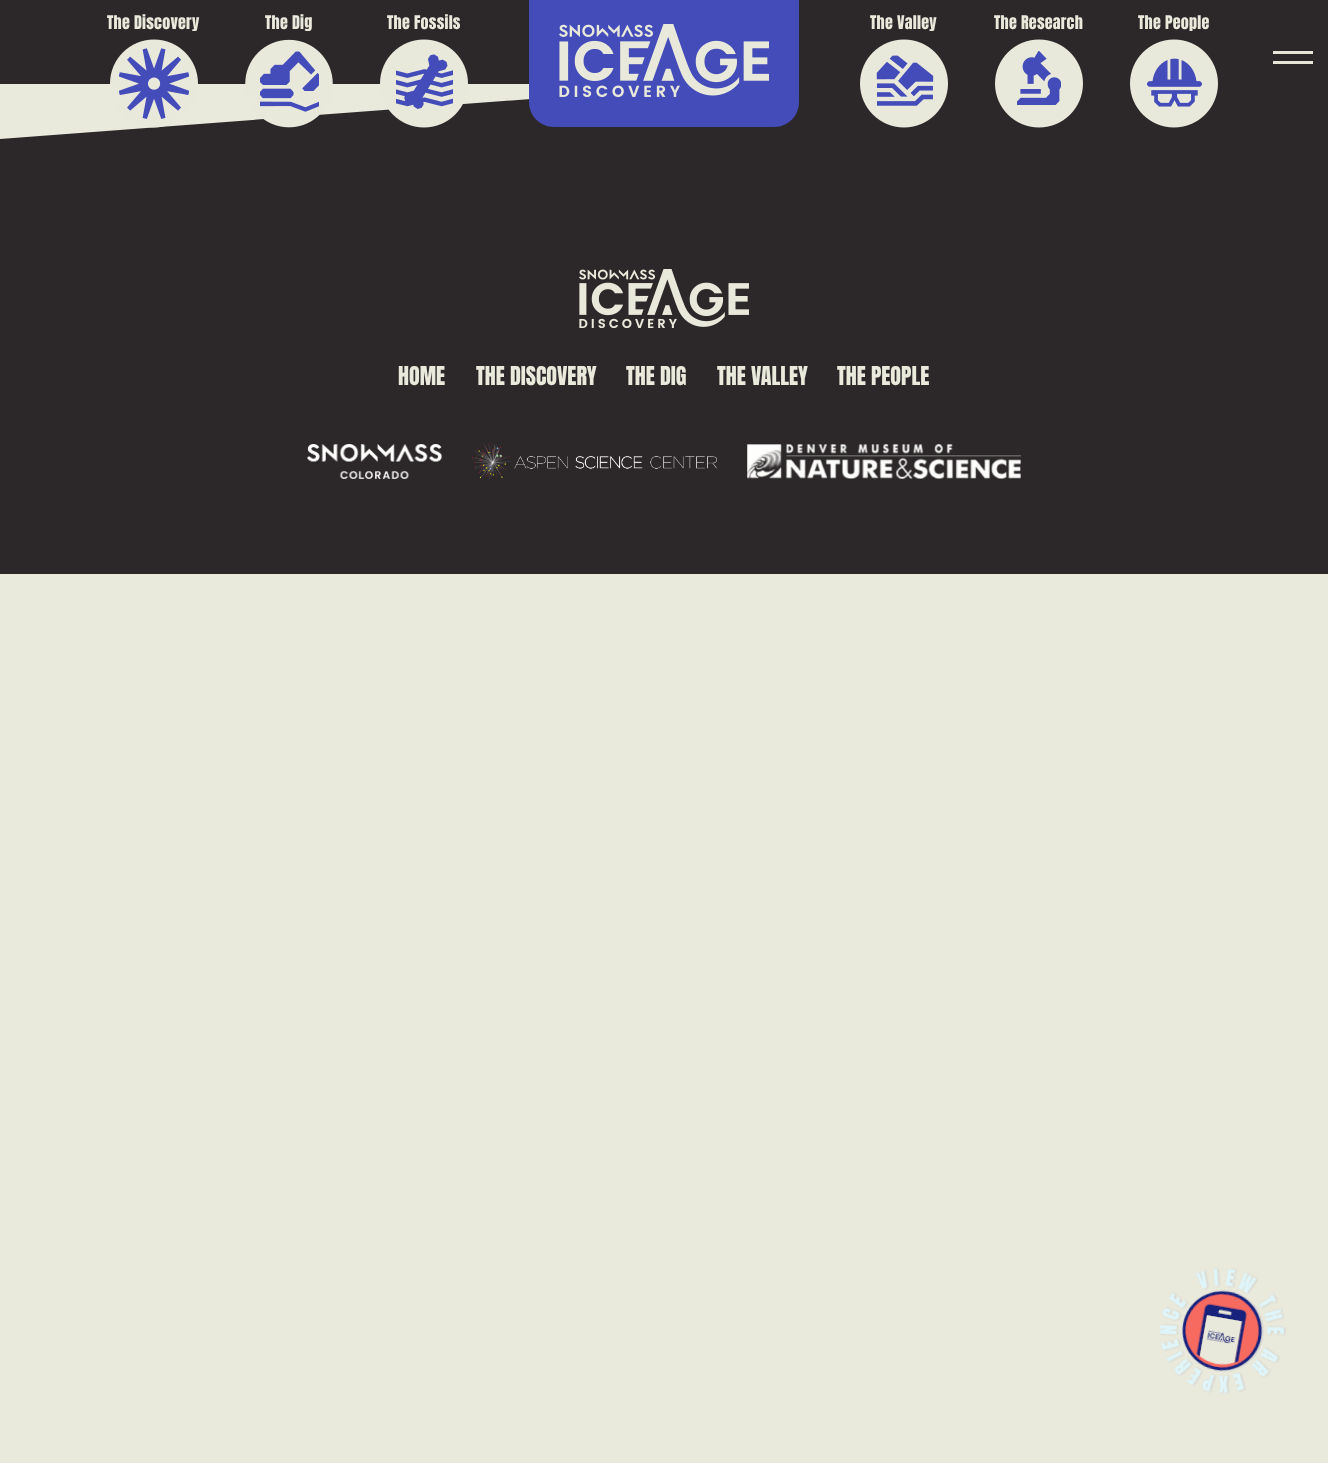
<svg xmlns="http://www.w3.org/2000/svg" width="1328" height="1463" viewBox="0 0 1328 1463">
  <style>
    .t1 { font: 16px Anton; letter-spacing: 0.25px; fill: #e9e9dc; }
    .t2 { font: 22px Anton; fill: #e9e9dc; }
  </style>
  <rect width="100%" height="100%" fill="#e9e9dc"/>
  <path d="M0 139V574H1328V39Z" fill="#2c2829"/>
  <rect x="0" y="0" width="1328" height="84" fill="#2c2829"/>
  <text x="107" y="29" class="t1">The Discovery</text>
  <image x="110" y="39" width="88" height="89" href="images/1.png"/>
  <text x="265" y="29" class="t1">The Dig</text>
  <image x="245" y="39" width="88" height="89" href="images/2.png"/>
  <text x="387" y="29" class="t1">The Fossils</text>
  <image x="380" y="39" width="88" height="89" href="images/3.png"/>
  <path d="M529 0H799V102C799 116 788 127 774 127H554C540 127 529 116 529 102Z" fill="#434cb9"/>
  <image x="559" y="24" width="210" height="73" href="images/4.png"/>
  <text x="870" y="29" class="t1">The Valley</text>
  <image x="860" y="39" width="88" height="89" href="images/5.png"/>
  <text x="994" y="29" class="t1">The Research</text>
  <image x="995" y="39" width="88" height="89" href="images/6.png"/>
  <text x="1138" y="29" class="t1">The People</text>
  <image x="1130" y="39" width="88" height="89" href="images/7.png"/>
  <rect x="1273" y="51" width="40" height="3" fill="#e5e6d7"/>
  <rect x="1273" y="61" width="40" height="3" fill="#e5e6d7"/>
  <image x="579" y="269" width="170" height="59" href="images/8.png"/>
  <text x="398" y="385" class="t2">HOME</text>
  <text x="476" y="385" class="t2">THE DISCOVERY</text>
  <text x="626" y="385" class="t2">THE DIG</text>
  <text x="717" y="385" class="t2">THE VALLEY</text>
  <text x="837" y="385" class="t2">THE PEOPLE</text>
  <image x="307" y="444" width="135" height="35" href="images/9.png"/>
  <image x="472" y="444" width="245" height="35" href="images/10.png"/>
  <image x="747" y="444" width="274" height="35" href="images/11.png"/>
  <image x="1159" y="1268" width="127" height="126" href="images/12.png"/>
</svg>
